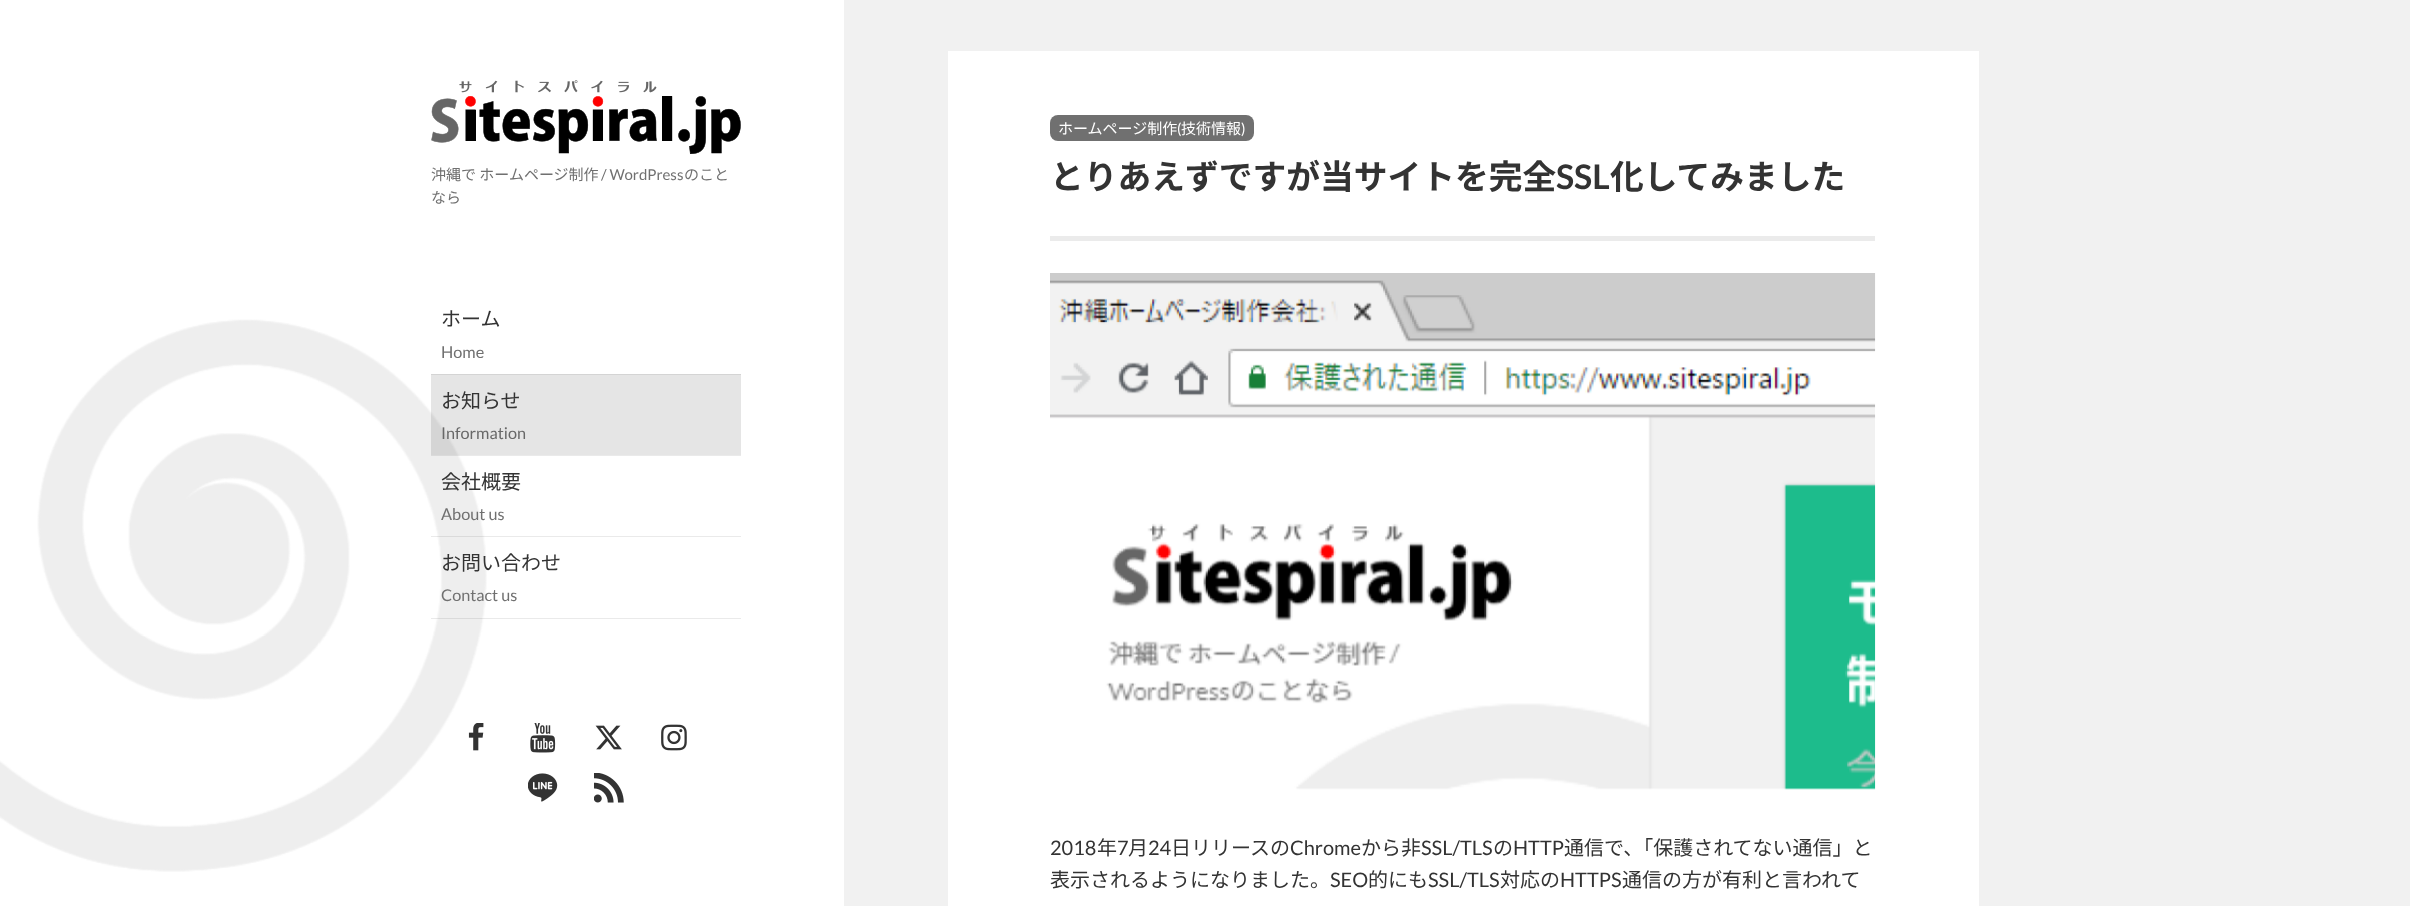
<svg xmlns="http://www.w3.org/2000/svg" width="2410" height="906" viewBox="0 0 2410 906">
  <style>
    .t1 { font: 15px Noto Sans JP; fill: #707070; }
    .t2 { font: 15px Lato; fill: #707070; }
    .t3 { font: 20px Noto Sans JP; fill: #333; }
    .t4 { font: 16.25px Lato; fill: #707070; }
    .t5 { font: 16.25px Lato; fill: #686868; }
    .t6 { font: 15px Noto Sans JP; fill: #fff; }
    .t7 { font: 15px Lato; fill: #fff; }
    .t8 { font: bold 33.75px Noto Sans JP; fill: #333; }
    .t9 { font: bold 33.75px Lato; fill: #333; }
    .t10 { font: 20px Lato; fill: #333; }
  </style>
  <rect width="100%" height="100%" fill="#f1f1f1"/>
  <rect x="0" y="0" width="844" height="906" fill="#fff"/>
  <image x="0" y="319" width="487" height="553" href="images/1.png"/>
  <image x="431" y="80" width="310" height="74" href="images/2.png"/>
  <text x="431" y="180" class="t1">沖縄で ホームページ制作</text>
  <text x="601" y="180" class="t2">/ WordPress</text>
  <text x="684" y="180" class="t1">のこと</text>
  <text x="431" y="203" class="t1">なら</text>
  <rect x="431" y="618" width="310" height="1" fill="#3333331a"/>
  <text x="441" y="326" class="t3">ホーム</text>
  <text x="441" y="358" class="t4">Home</text>
  <rect x="431" y="375" width="310" height="80" fill="#0000001a"/>
  <rect x="431" y="374" width="310" height="1" fill="#d4d4d4"/>
  <text x="441" y="408" class="t3">お知らせ</text>
  <text x="441" y="439" class="t5">Information</text>
  <rect x="431" y="455" width="310" height="1" fill="#3333331a"/>
  <text x="441" y="489" class="t3">会社概要</text>
  <text x="441" y="520" class="t4">About us</text>
  <rect x="431" y="536" width="310" height="1" fill="#3333331a"/>
  <text x="441" y="570" class="t3">お問い合わせ</text>
  <text x="441" y="601" class="t4">Contact us</text>
  <image x="468" y="723" width="16" height="28" href="images/3.png"/>
  <image x="530" y="723" width="26" height="30" href="images/4.png"/>
  <image x="595" y="725" width="27" height="25" href="images/5.png"/>
  <image x="661" y="724" width="26" height="27" href="images/6.png"/>
  <image x="528" y="773" width="30" height="29" href="images/7.png"/>
  <image x="594" y="773" width="30" height="30" href="images/8.png"/>
  <rect x="948" y="51" width="1031" height="855" fill="#fff"/>
  <rect x="1050" y="236" width="825" height="5" fill="#ebebeb"/>
  <rect x="1050" y="115" width="204" height="26" rx="8" fill="#707070"/>
  <text x="1058" y="134" class="t6">ホームページ制作</text>
  <text x="1177" y="134" class="t7">(</text>
  <text x="1181" y="134" class="t6">技術情報</text>
  <text x="1241" y="134" class="t7">)</text>
  <text x="1050" y="189" class="t8">とりあえずですが当サイトを完全</text>
  <text x="1556" y="189" class="t9">SSL</text>
  <text x="1610" y="189" class="t8">化してみました</text>
  <image x="1050" y="273" width="826" height="517" href="images/9.png"/>
  <text x="1050" y="855" class="t10">2018</text>
  <text x="1097" y="855" class="t3">年</text>
  <text x="1117" y="855" class="t10">7</text>
  <text x="1128" y="855" class="t3">月</text>
  <text x="1148" y="855" class="t10">24</text>
  <text x="1171" y="855" class="t3">日リリースの</text>
  <text x="1290" y="855" class="t10">Chrome</text>
  <text x="1361" y="855" class="t3">から非</text>
  <text x="1421" y="855" class="t10">SSL/TLS</text>
  <text x="1493" y="855" class="t3">の</text>
  <text x="1513" y="855" class="t10">HTTP</text>
  <text x="1564" y="855" class="t3">通信で、「保護されてない通信」と</text>
  <text x="1050" y="887" class="t3">表示されるようになりました。</text>
  <text x="1330" y="887" class="t10">SEO</text>
  <text x="1368" y="887" class="t3">的にも</text>
  <text x="1428" y="887" class="t10">SSL/TLS</text>
  <text x="1500" y="887" class="t3">対応の</text>
  <text x="1560" y="887" class="t10">HTTPS</text>
  <text x="1622" y="887" class="t3">通信の方が有利と言われて</text>
</svg>
